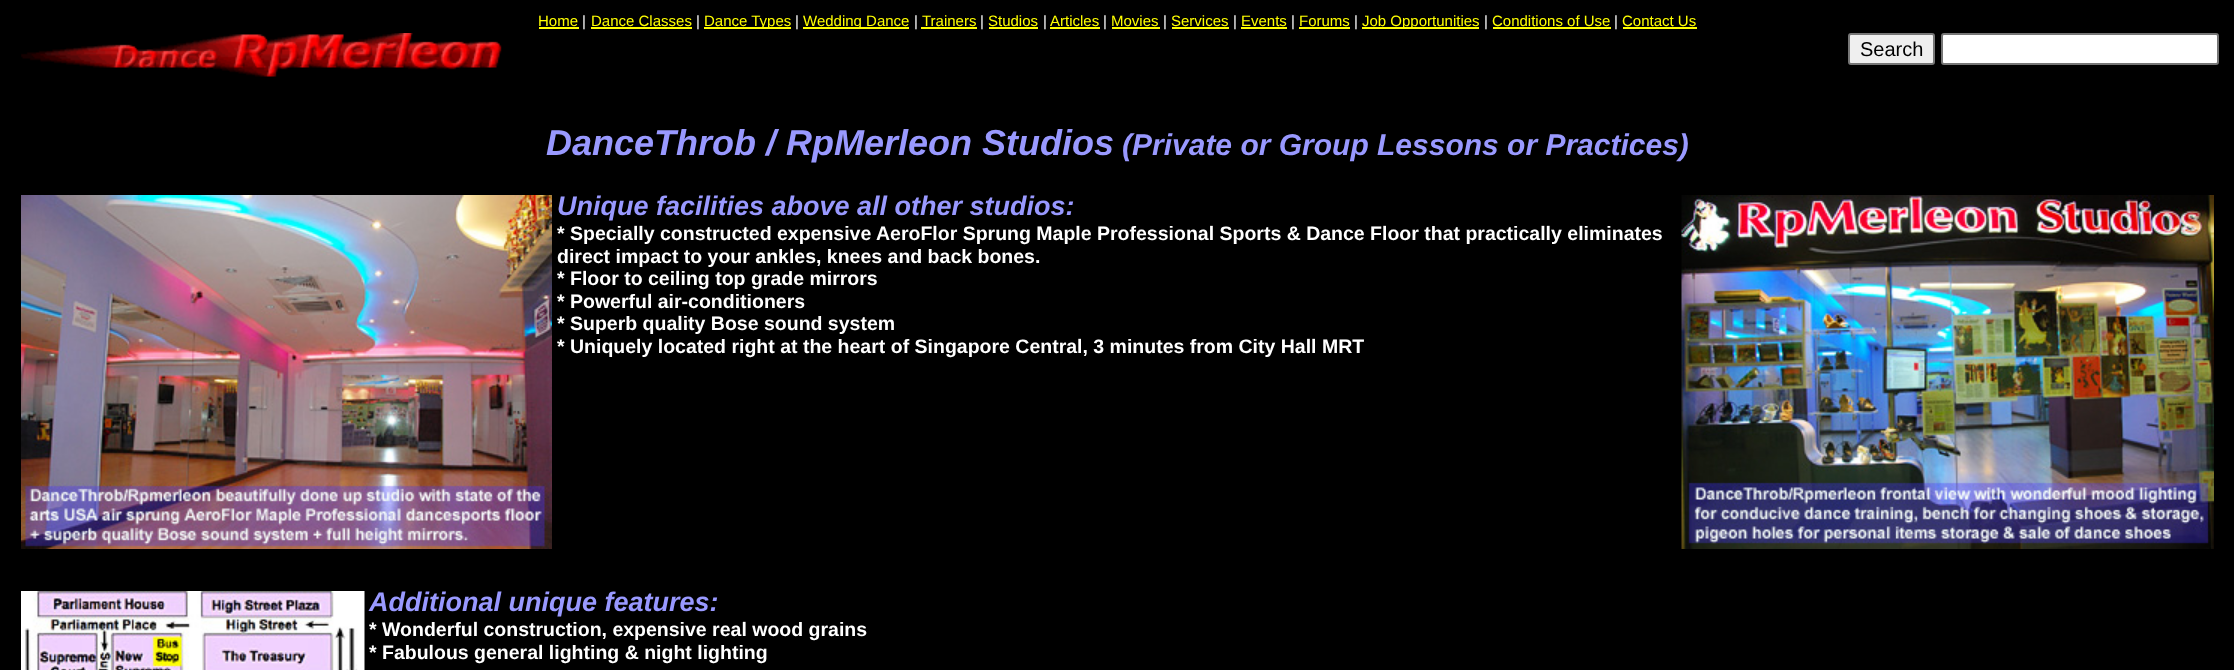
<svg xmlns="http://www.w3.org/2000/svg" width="2234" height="670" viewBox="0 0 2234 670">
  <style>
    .t1 { font: 15px Liberation Sans; fill: #ff0; }
    .t2 { font: 15px Liberation Sans; fill: #fff; }
    .t3 { font: 20px Liberation Sans; fill: #000; }
    .t4 { font: italic bold 36px Liberation Sans; fill: #99f; }
    .t5 { font: italic bold 30px Liberation Sans; fill: #99f; }
    .t6 { font: italic bold 27px Liberation Sans; fill: #99f; }
    .t7 { font: bold 19.5px Liberation Sans; fill: #fff; }
  </style>
  <rect width="100%" height="100%" fill="#000"/>
  <text x="538" y="26" class="t1">Home</text>
  <rect x="539" y="27" width="40" height="2" fill="#ff0"/>
  <text x="582" y="26" class="t2">|</text>
  <text x="591" y="26" class="t1">Dance Classes</text>
  <rect x="591" y="27" width="101" height="2" fill="#ff0"/>
  <text x="696" y="26" class="t2">|</text>
  <rect x="704" y="27" width="87" height="2" fill="#ff0"/>
  <text x="704" y="26" class="t1">Dance Types</text>
  <text x="795" y="26" class="t2">|</text>
  <rect x="803" y="27" width="106" height="2" fill="#ff0"/>
  <text x="803" y="26" class="t1">Wedding Dance</text>
  <text x="914" y="26" class="t2">|</text>
  <text x="922" y="26" class="t1">Trainers</text>
  <rect x="921" y="27" width="56" height="2" fill="#ff0"/>
  <text x="980" y="26" class="t2">|</text>
  <text x="988" y="26" class="t1">Studios</text>
  <rect x="989" y="27" width="49" height="2" fill="#ff0"/>
  <text x="1043" y="26" class="t2">|</text>
  <text x="1050" y="26" class="t1">Articles</text>
  <rect x="1050" y="27" width="50" height="2" fill="#ff0"/>
  <text x="1103" y="26" class="t2">|</text>
  <text x="1111" y="26" class="t1">Movies</text>
  <rect x="1112" y="27" width="48" height="2" fill="#ff0"/>
  <text x="1163" y="26" class="t2">|</text>
  <text x="1171" y="26" class="t1">Services</text>
  <rect x="1172" y="27" width="57" height="2" fill="#ff0"/>
  <text x="1233" y="26" class="t2">|</text>
  <text x="1241" y="26" class="t1">Events</text>
  <rect x="1241" y="27" width="46" height="2" fill="#ff0"/>
  <text x="1291" y="26" class="t2">|</text>
  <text x="1299" y="26" class="t1">Forums</text>
  <rect x="1299" y="27" width="51" height="2" fill="#ff0"/>
  <text x="1354" y="26" class="t2">|</text>
  <rect x="1362" y="27" width="117" height="2" fill="#ff0"/>
  <text x="1362" y="26" class="t1">Job Opportunities</text>
  <text x="1484" y="26" class="t2">|</text>
  <text x="1492" y="26" class="t1">Conditions of Use</text>
  <rect x="1493" y="27" width="118" height="2" fill="#ff0"/>
  <text x="1614" y="26" class="t2">|</text>
  <text x="1622" y="26" class="t1">Contact Us</text>
  <rect x="1623" y="27" width="74" height="2" fill="#ff0"/>
  <image x="21" y="33" width="481" height="44" href="images/1.png"/>
  <rect x="1849" y="34" width="85" height="30" rx="2" fill="#efefef" stroke="#767676" stroke-width="2"/>
  <text x="1860" y="56" class="t3">Search</text>
  <rect x="1942" y="34" width="276" height="30" rx="2" fill="#fff" stroke="#767676" stroke-width="2"/>
  <text x="546" y="155" class="t4">DanceThrob / RpMerleon Studios</text>
  <text x="1122" y="155" class="t5">(Private or Group Lessons or Practices)</text>
  <image x="21" y="195" width="531" height="354" href="images/2.png"/>
  <text x="557" y="215" class="t6">Unique facilities above all other studios:</text>
  <image x="1681" y="195" width="533" height="354" href="images/3.png"/>
  <text x="557" y="240" class="t7">* Specially constructed expensive AeroFlor Sprung Maple Professional Sports &amp; Dance Floor that practically eliminates</text>
  <text x="557" y="263" class="t7">direct impact to your ankles, knees and back bones.</text>
  <text x="557" y="285" class="t7">* Floor to ceiling top grade mirrors</text>
  <text x="557" y="308" class="t7">* Powerful air-conditioners</text>
  <text x="557" y="330" class="t7">* Superb quality Bose sound system</text>
  <text x="557" y="353" class="t7">* Uniquely located right at the heart of Singapore Central, 3 minutes from City Hall MRT</text>
  <image x="21" y="591" width="344" height="79" href="images/4.png"/>
  <text x="369" y="611" class="t6">Additional unique features:</text>
  <text x="369" y="636" class="t7">* Wonderful construction, expensive real wood grains</text>
  <text x="369" y="659" class="t7">* Fabulous general lighting &amp; night lighting</text>
</svg>
